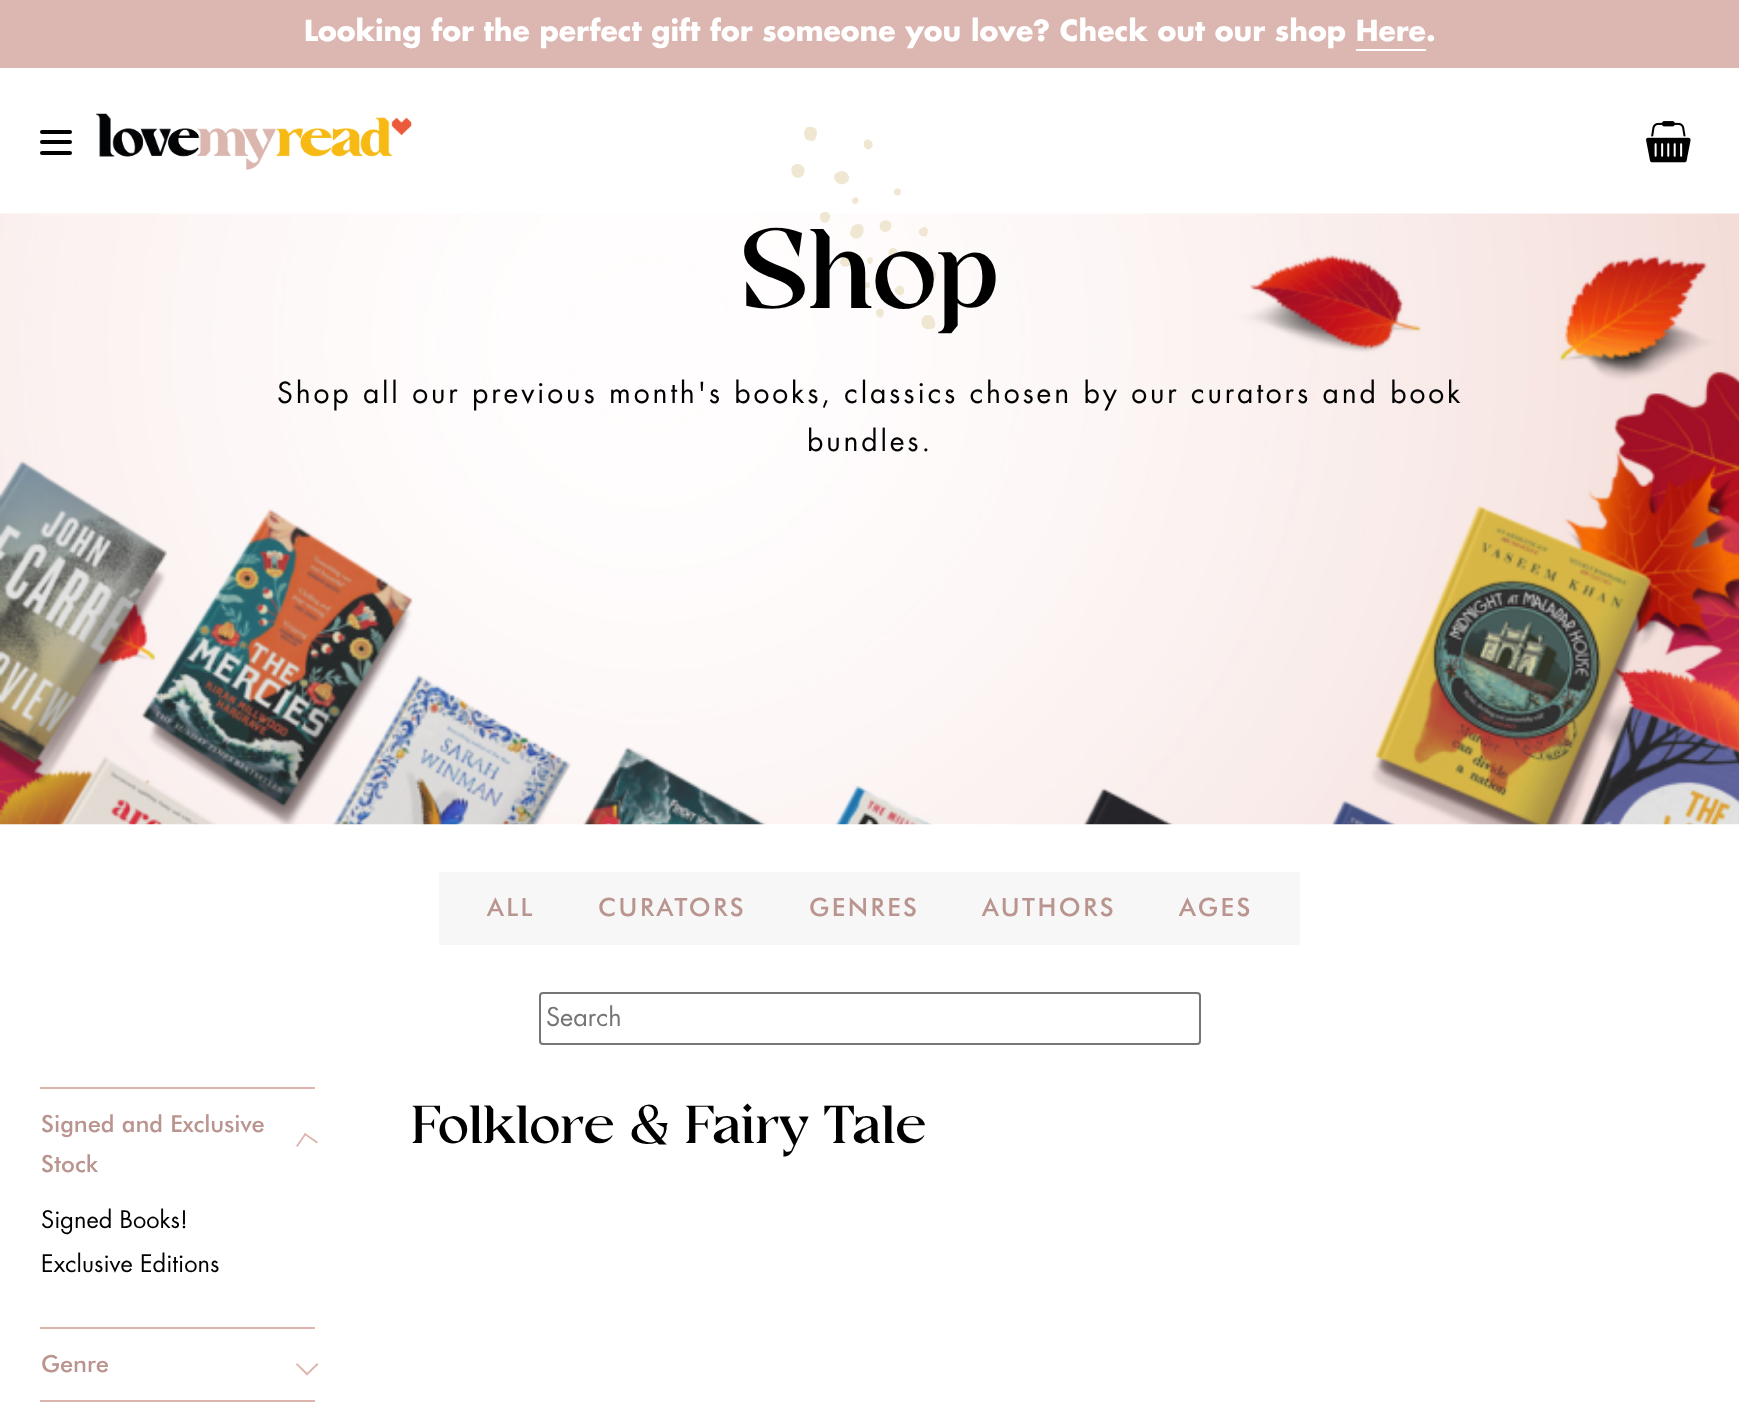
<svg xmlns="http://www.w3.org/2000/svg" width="1739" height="1415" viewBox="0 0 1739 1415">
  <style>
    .t1 { font: bold 28.35px Futura; fill: #fff; }
    .t2 { font: 500 126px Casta; fill: #000; }
    .t3 { font: 28.35px Futura; letter-spacing: 2.83px; fill: #000; }
    .t4 { font: 500 25.25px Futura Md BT; letter-spacing: 2.5px; fill: #ba948e; }
    .t5 { font: 25.25px Futura; fill: #757575; }
    .t6 { font: 500 23.6px Futura Md BT; fill: #ba948e; }
    .t7 { font: 23.6px Futura; fill: #000; }
    .t8 { font: 500 59.75px Casta; fill: #000; }
  </style>
  <rect width="100%" height="100%" fill="#fff"/>
  <rect x="0" y="0" width="1739" height="68" fill="#dcb6b0"/>
  <text x="304" y="41" class="t1">Looking for the perfect gift for someone you love? Check out our shop Here.</text>
  <rect x="1356" y="49" width="70" height="2" fill="#fff"/>
  <rect x="40" y="140" width="32" height="4" rx="2" fill="#000"/>
  <rect x="40" y="130" width="32" height="4" rx="2" fill="#000"/>
  <rect x="40" y="151" width="32" height="4" rx="2" fill="#000"/>
  <image x="96" y="113" width="316" height="57" href="images/1.png"/>
  <image x="1646" y="121" width="45" height="42" href="images/2.png"/>
  <image x="0" y="213" width="1739" height="612" href="images/3.png"/>
  <image x="791" y="126" width="145" height="204" href="images/4.png"/>
  <text x="740" y="308" class="t2">Shop</text>
  <text x="277" y="403" class="t3">Shop all our previous month's books, classics chosen by our curators and book</text>
  <text x="807" y="451" class="t3">bundles.</text>
  <rect x="439" y="872" width="861" height="73" fill="#f7f7f7"/>
  <text x="487" y="916" class="t4">ALL</text>
  <text x="598" y="916" class="t4">CURATORS</text>
  <text x="809" y="916" class="t4">GENRES</text>
  <text x="982" y="916" class="t4">AUTHORS</text>
  <text x="1179" y="916" class="t4">AGES</text>
  <rect x="540" y="993" width="660" height="51" rx="3" fill="none" stroke="#767676" stroke-width="2"/>
  <text x="546" y="1026" class="t5">Search</text>
  <rect x="40" y="1087" width="275" height="2" fill="#dcb5af"/>
  <text x="41" y="1132" class="t6">Signed and Exclusive</text>
  <path d="M306.5 1134L297.5 1147L296 1146L305 1133Z" fill="#dcb5af"/>
  <path d="M318 1142L317 1143.5L304 1134.5L305 1133Z" fill="#dcb5af"/>
  <text x="41" y="1172" class="t6">Stock</text>
  <text x="41" y="1228" class="t7">Signed Books!</text>
  <text x="41" y="1272" class="t7">Exclusive Editions</text>
  <rect x="40" y="1327" width="275" height="2" fill="#dcb5af"/>
  <text x="41" y="1372" class="t6">Genre</text>
  <path d="M306 1374L317 1363L318.5 1364.5L307 1375.5Z" fill="#dcb5af"/>
  <path d="M296 1364.5L297 1363L308.5 1374L307 1375.5Z" fill="#dcb5af"/>
  <rect x="40" y="1400" width="275" height="2" fill="#dcb5af"/>
  <text x="411" y="1143" class="t8">Folklore &amp; Fairy Tale</text>
</svg>
